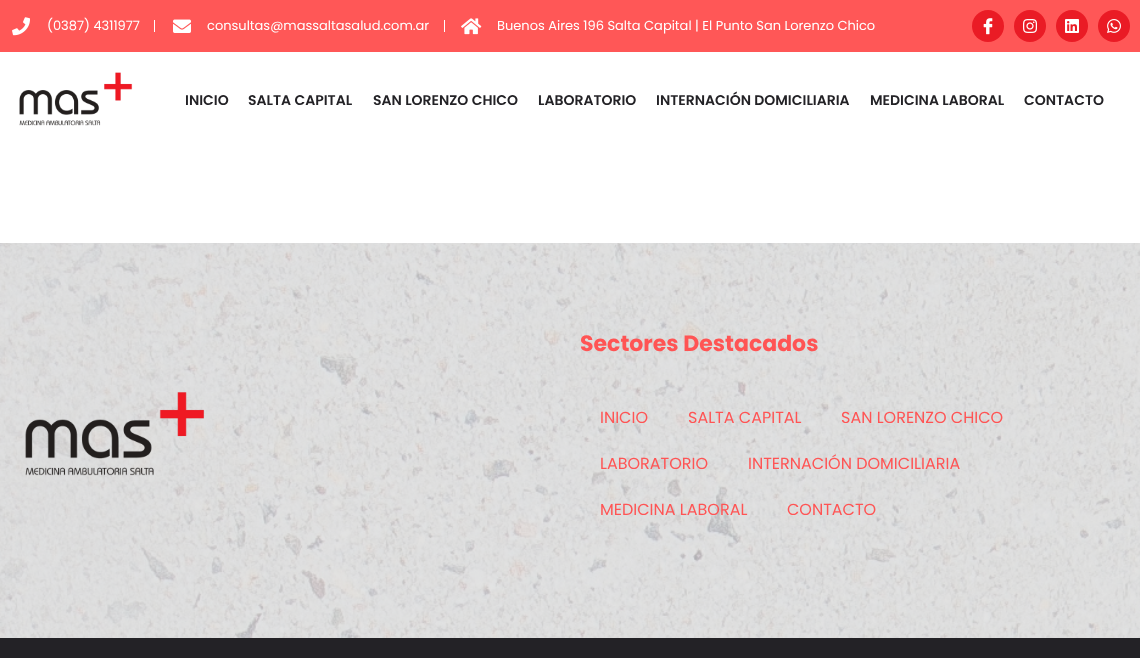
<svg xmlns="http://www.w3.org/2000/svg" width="1140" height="658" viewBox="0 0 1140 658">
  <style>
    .t1 { font: 13px Poppins; fill: #fff; }
    .t2 { font: 600 14px Poppins; fill: #232226; }
    .t3 { font: bold 22px Poppins; fill: #ff5454; }
    .t4 { font: 16px Poppins; fill: #ff5454; }
  </style>
  <rect width="100%" height="100%" fill="#fff"/>
  <rect x="0" y="0" width="1140" height="52" fill="#ff5757"/>
  <image x="12" y="17" width="18" height="19" href="images/1.png"/>
  <text x="47" y="30" class="t1">(0387) 4311977</text>
  <rect x="154" y="20" width="1" height="12" fill="#fff"/>
  <image x="173" y="19" width="18" height="14" href="images/2.png"/>
  <text x="207" y="30" class="t1">consultas@massaltasalud.com.ar</text>
  <rect x="444" y="20" width="1" height="12" fill="#fff"/>
  <image x="461" y="18" width="21" height="17" href="images/3.png"/>
  <text x="497" y="30" class="t1">Buenos Aires 196 Salta Capital | El Punto San Lorenzo Chico</text>
  <circle cx="988" cy="26" r="16" fill="#ea1b25"/>
  <image x="983" y="18" width="10" height="17" href="images/4.png"/>
  <circle cx="1030" cy="26" r="16" fill="#ea1b25"/>
  <image x="1023" y="19" width="14" height="14" href="images/5.png"/>
  <circle cx="1072" cy="26" r="16" fill="#ea1b25"/>
  <image x="1065" y="19" width="14" height="14" href="images/6.png"/>
  <circle cx="1114" cy="26" r="16" fill="#ea1b25"/>
  <image x="1107" y="19" width="14" height="14" href="images/7.png"/>
  <image x="19" y="72" width="114" height="54" href="images/8.png"/>
  <text x="185" y="105" class="t2">INICIO</text>
  <text x="248" y="105" class="t2">SALTA CAPITAL</text>
  <text x="373" y="105" class="t2">SAN LORENZO CHICO</text>
  <text x="538" y="105" class="t2">LABORATORIO</text>
  <text x="656" y="105" class="t2">INTERNACIÓN DOMICILIARIA</text>
  <text x="870" y="105" class="t2">MEDICINA LABORAL</text>
  <text x="1024" y="105" class="t2">CONTACTO</text>
  <image x="0" y="243" width="1140" height="395" href="images/9.png"/>
  <image x="25" y="392" width="179" height="84" href="images/10.png"/>
  <text x="580" y="351" class="t3">Sectores Destacados</text>
  <text x="600" y="423" class="t4">INICIO</text>
  <text x="688" y="423" class="t4">SALTA CAPITAL</text>
  <text x="841" y="423" class="t4">SAN LORENZO CHICO</text>
  <text x="600" y="469" class="t4">LABORATORIO</text>
  <text x="748" y="469" class="t4">INTERNACIÓN DOMICILIARIA</text>
  <text x="600" y="515" class="t4">MEDICINA LABORAL</text>
  <text x="787" y="515" class="t4">CONTACTO</text>
  <rect x="0" y="638" width="1140" height="20" fill="#232226"/>
</svg>
